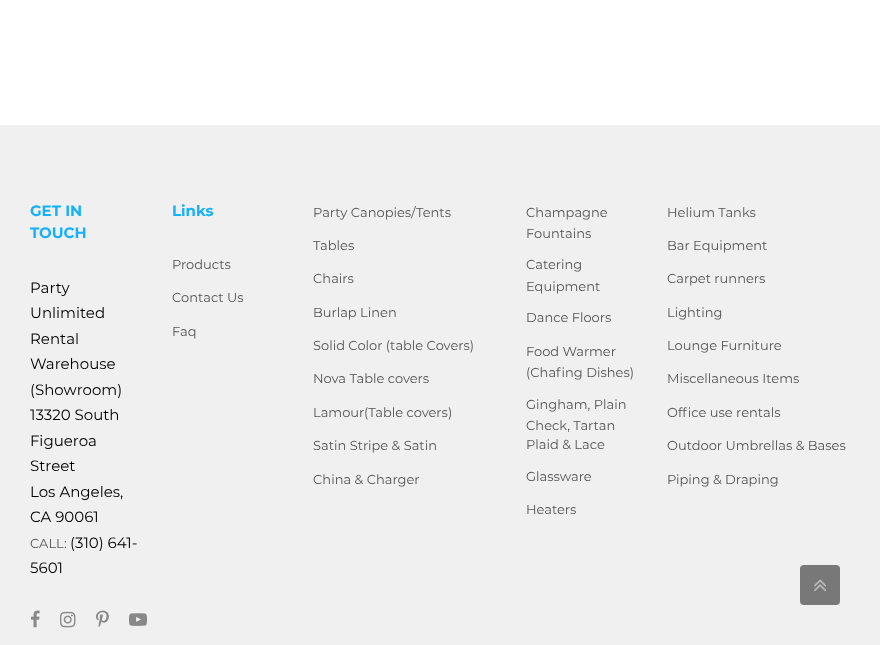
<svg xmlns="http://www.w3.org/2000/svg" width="880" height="645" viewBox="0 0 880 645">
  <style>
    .t1 { font: bold 15px Montserrat; fill: #15b1ff; }
    .t2 { font: 15px Montserrat; fill: #000; }
    .t3 { font: 13px Montserrat; fill: #555; }
  </style>
  <rect width="100%" height="100%" fill="#fff"/>
  <rect x="0" y="125" width="880" height="520" fill="#f0f0f0"/>
  <text x="30" y="216" class="t1">GET IN</text>
  <text x="30" y="238" class="t1">TOUCH</text>
  <text x="30" y="293" class="t2">Party</text>
  <text x="30" y="318" class="t2">Unlimited</text>
  <text x="30" y="344" class="t2">Rental</text>
  <text x="30" y="369" class="t2">Warehouse</text>
  <text x="30" y="395" class="t2">(Showroom)</text>
  <text x="30" y="420" class="t2">13320 South</text>
  <text x="30" y="446" class="t2">Figueroa</text>
  <text x="30" y="471" class="t2">Street</text>
  <text x="30" y="497" class="t2">Los Angeles,</text>
  <text x="30" y="522" class="t2">CA 90061</text>
  <text x="30" y="548" class="t3">CALL:</text>
  <text x="70" y="548" class="t2">(310) 641-</text>
  <text x="30" y="573" class="t2">5601</text>
  <image x="30" y="610" width="10" height="18" href="images/1.png"/>
  <image x="60" y="611" width="16" height="17" href="images/2.png"/>
  <image x="96" y="610" width="13" height="18" href="images/3.png"/>
  <image x="129" y="613" width="18" height="13" href="images/4.png"/>
  <text x="172" y="216" class="t1">Links</text>
  <text x="172" y="269" class="t3">Products</text>
  <text x="172" y="302" class="t3">Contact Us</text>
  <text x="172" y="336" class="t3">Faq</text>
  <text x="313" y="217" class="t3">Party Canopies/Tents</text>
  <text x="313" y="250" class="t3">Tables</text>
  <text x="313" y="283" class="t3">Chairs</text>
  <text x="313" y="317" class="t3">Burlap Linen</text>
  <text x="313" y="350" class="t3">Solid Color (table Covers)</text>
  <text x="313" y="383" class="t3">Nova Table covers</text>
  <text x="313" y="417" class="t3">Lamour(Table covers)</text>
  <text x="313" y="450" class="t3">Satin Stripe &amp; Satin</text>
  <text x="313" y="484" class="t3">China &amp; Charger</text>
  <text x="526" y="217" class="t3">Champagne</text>
  <text x="526" y="238" class="t3">Fountains</text>
  <text x="526" y="269" class="t3">Catering</text>
  <text x="526" y="291" class="t3">Equipment</text>
  <text x="526" y="322" class="t3">Dance Floors</text>
  <text x="526" y="356" class="t3">Food Warmer</text>
  <text x="526" y="377" class="t3">(Chafing Dishes)</text>
  <text x="526" y="409" class="t3">Gingham, Plain</text>
  <text x="526" y="430" class="t3">Check, Tartan</text>
  <text x="526" y="449" class="t3">Plaid &amp; Lace</text>
  <text x="526" y="481" class="t3">Glassware</text>
  <text x="526" y="514" class="t3">Heaters</text>
  <text x="667" y="217" class="t3">Helium Tanks</text>
  <text x="667" y="250" class="t3">Bar Equipment</text>
  <text x="667" y="283" class="t3">Carpet runners</text>
  <text x="667" y="317" class="t3">Lighting</text>
  <text x="667" y="350" class="t3">Lounge Furniture</text>
  <text x="667" y="383" class="t3">Miscellaneous Items</text>
  <text x="667" y="417" class="t3">Office use rentals</text>
  <text x="667" y="450" class="t3">Outdoor Umbrellas &amp; Bases</text>
  <text x="667" y="484" class="t3">Piping &amp; Draping</text>
  <rect x="800" y="565" width="40" height="40" rx="4" fill="#787878"/>
  <image x="814" y="579" width="13" height="13" href="images/5.png"/>
</svg>
